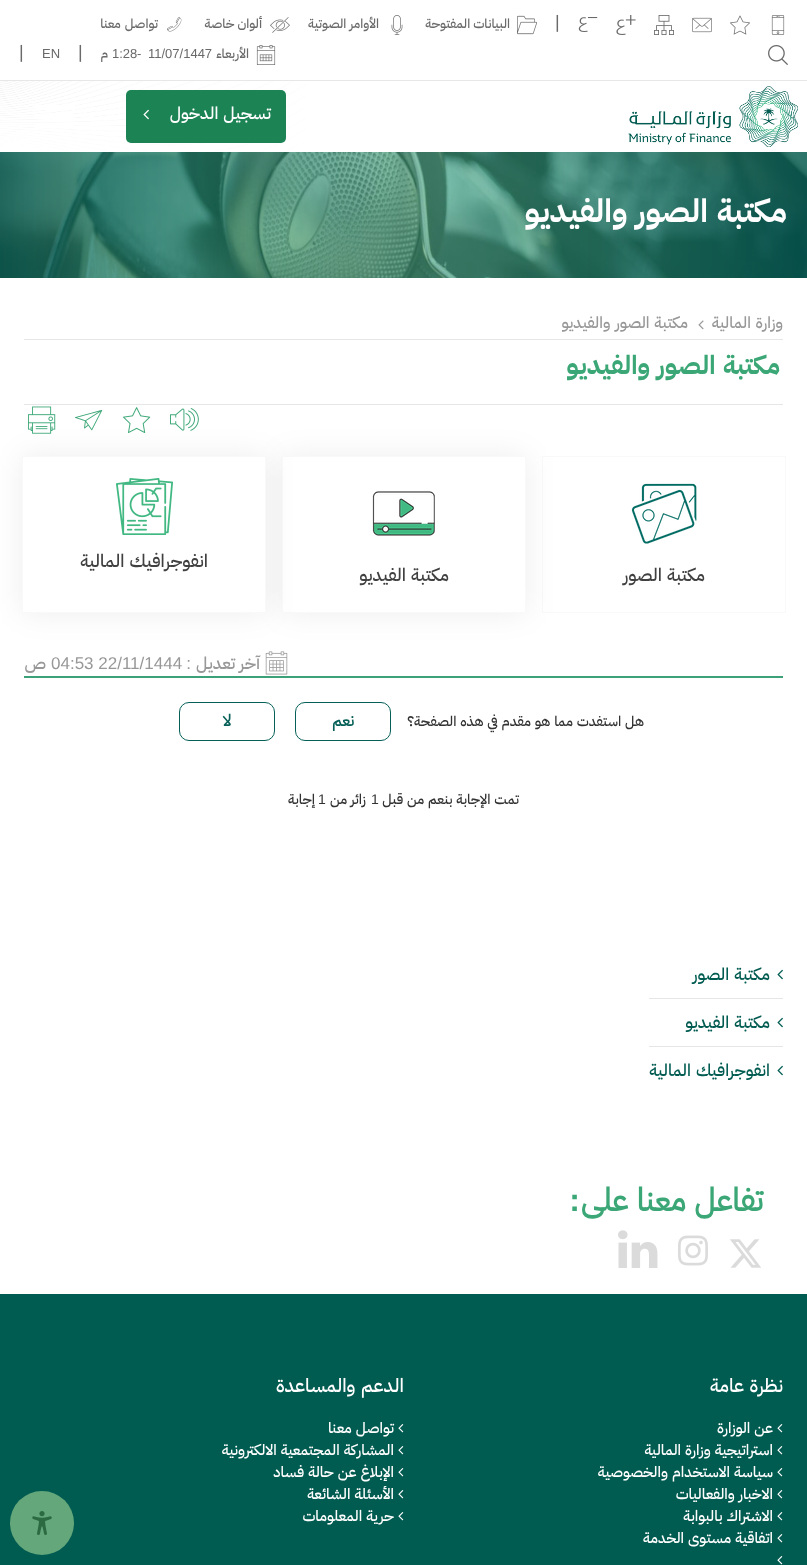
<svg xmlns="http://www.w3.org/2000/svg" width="807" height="1565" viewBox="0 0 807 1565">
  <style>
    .t1 { font: 18px Liberation Sans; fill: #6a6a6a; }
    .t2 { font: 500 13px IBM Plex Sans Arabic; direction: rtl; fill: #6a6a6a; }
    .t3 { font: 13px Liberation Sans; fill: #6a6a6a; }
    .t4 { font: 500 17px IBM Plex Sans Arabic; direction: rtl; fill: #fff; }
    .t5 { font: bold 32px 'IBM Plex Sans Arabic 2'; direction: rtl; fill: #fff; }
    .t6 { font: 500 16px IBM Plex Sans Arabic; direction: rtl; fill: #989899; }
    .t7 { font: bold 26px 'IBM Plex Sans Arabic 2'; direction: rtl; fill: #3ca776; }
    .t8 { font: 500 18px IBM Plex Sans Arabic; direction: rtl; fill: #404040; }
    .t9 { font: 500 17px IBM Plex Sans Arabic; direction: rtl; fill: #989899; }
    .t10 { font: 17px Liberation Sans; direction: rtl; fill: #989899; }
    .t11 { font: 17px Liberation Sans; fill: #989899; }
    .t12 { font: 500 14px IBM Plex Sans Arabic; direction: rtl; fill: #323232; }
    .t13 { font: bold 16px IBM Plex Sans Arabic; direction: rtl; fill: #066058; }
    .t14 { font: 14px Liberation Sans; fill: #323232; }
    .t15 { font: 500 17px IBM Plex Sans Arabic; direction: rtl; fill: #005b51; }
    .t16 { font: bold 32px IBM Plex Sans Arabic; direction: rtl; fill: #3ca776; }
    .t17 { font: bold 32px Liberation Sans; direction: rtl; fill: #3ca776; }
    .t18 { font: 500 19px IBM Plex Sans Arabic; direction: rtl; fill: #fff; }
    .t19 { font: 500 15px IBM Plex Sans Arabic; direction: rtl; fill: #fff; }
  </style>
  <rect width="100%" height="100%" fill="#fff"/>
  <image x="771" y="15" width="14" height="20" href="images/1.png"/>
  <image x="730" y="15" width="20" height="20" href="images/2.png"/>
  <image x="692" y="17" width="20" height="16" href="images/3.png"/>
  <image x="654" y="15" width="20" height="20" href="images/4.png"/>
  <image x="616" y="15" width="20" height="20" href="images/5.png"/>
  <image x="578" y="17" width="20" height="15" href="images/6.png"/>
  <text x="555" y="28" class="t1">|</text>
  <image x="517" y="15" width="20" height="20" href="images/7.png"/>
  <text x="510" y="28" class="t2">البيانات المفتوحة</text>
  <image x="391" y="15" width="12" height="20" href="images/8.png"/>
  <text x="379" y="28" class="t2">الأوامر الصوتية</text>
  <image x="270" y="17" width="20" height="16" href="images/9.png"/>
  <text x="262" y="28" class="t2">ألوان خاصة</text>
  <image x="167" y="17" width="15" height="15" href="images/10.png"/>
  <text x="158" y="28" word-spacing="1" class="t2">تواصل معنا</text>
  <image x="768" y="45" width="20" height="20" href="images/11.png"/>
  <image x="256" y="45" width="20" height="20" href="images/12.png"/>
  <text x="249" y="58" class="t2">الأربعاء</text>
  <text x="148" y="58" class="t3">11/07/1447</text>
  <text x="137" y="58" class="t3">-</text>
  <text x="112" y="58" class="t3">1:28</text>
  <text x="108" y="58" class="t2">م</text>
  <text x="78" y="58" class="t1">|</text>
  <text x="42" y="58" class="t3">EN</text>
  <text x="19" y="58" class="t1">|</text>
  <image x="0" y="81" width="306" height="70" href="images/13.png"/>
  <rect x="0" y="80" width="807" height="1" fill="#e7e7e7"/>
  <image x="628" y="86" width="170" height="61" href="images/14.png"/>
  <rect x="126" y="90" width="160" height="53" rx="5" fill="#1b8354"/>
  <text x="271" y="119" word-spacing="1" class="t4">تسجيل الدخول</text>
  <image x="143" y="109" width="6" height="11" href="images/15.png"/>
  <rect x="35" y="105" width="40" height="5" fill="#fff"/>
  <rect x="35" y="114" width="40" height="5" fill="#fff"/>
  <rect x="35" y="124" width="40" height="4" fill="#fff"/>
  <image x="0" y="152" width="807" height="126" href="images/16.png"/>
  <text x="787" y="222" word-spacing="1" class="t5">مكتبة الصور والفيديو</text>
  <rect x="24" y="339" width="759" height="1" fill="#e6e6e6"/>
  <text x="783" y="328" word-spacing="1" class="t6">وزارة المالية</text>
  <image x="698" y="320" width="6" height="10" href="images/17.png"/>
  <text x="688" y="328" word-spacing="1" class="t6">مكتبة الصور والفيديو</text>
  <rect x="24" y="404" width="759" height="1" fill="#e6e6e6"/>
  <text x="780" y="374" word-spacing="1" class="t7">مكتبة الصور والفيديو</text>
  <rect x="542.5" y="456.5" width="243" height="156" fill="none" stroke="#f9f9f9"/>
  <rect x="282" y="456" width="244" height="157" fill="#00000012" filter="blur(15px)"/>
  <rect x="282.5" y="456.5" width="243" height="156" fill="#fff" stroke="#f9f9f9"/>
  <rect x="22" y="456" width="244" height="157" fill="#00000012" filter="blur(15px)"/>
  <image x="170" y="408" width="29" height="23" href="images/18.png"/>
  <image x="123" y="407" width="28" height="26" href="images/19.png"/>
  <image x="75" y="409" width="28" height="22" href="images/20.png"/>
  <image x="28" y="406" width="28" height="28" href="images/21.png"/>
  <rect x="22.5" y="456.5" width="243" height="156" fill="#fff" stroke="#f9f9f9"/>
  <image x="116" y="478" width="57" height="57" href="images/22.png"/>
  <text x="208" y="567" word-spacing="1" class="t8">انفوجرافيك المالية</text>
  <image x="631" y="483" width="66" height="61" href="images/23.png"/>
  <text x="705" y="581" word-spacing="1" class="t8">مكتبة الصور</text>
  <image x="372" y="491" width="63" height="45" href="images/24.png"/>
  <text x="449" y="581" word-spacing="1" class="t8">مكتبة الفيديو</text>
  <image x="265" y="651" width="23" height="24" href="images/25.png"/>
  <text x="260" y="669" class="t9">آخر تعديل</text>
  <text x="191" y="669" class="t10">:</text>
  <text x="51" y="669" class="t11">04:53 22/11/1444</text>
  <text x="46" y="669" class="t9">ص</text>
  <rect x="24" y="676" width="759" height="2" fill="#3ca078"/>
  <text x="644" y="726" word-spacing="0.5" class="t12">هل استفدت مما هو مقدم في هذه الصفحة؟</text>
  <rect x="295.5" y="702.5" width="95" height="38" rx="9.5" fill="none" stroke="#066058"/>
  <text x="354" y="726" class="t13">نعم</text>
  <rect x="179.5" y="702.5" width="95" height="38" rx="9.5" fill="none" stroke="#066058"/>
  <text x="231" y="726" class="t13">لا</text>
  <text x="519" y="804" word-spacing="0.5" class="t12">تمت الإجابة بنعم من قبل</text>
  <text x="371" y="804" class="t14">1</text>
  <text x="366" y="804" class="t12">زائر من</text>
  <text x="318" y="804" class="t14">1</text>
  <text x="315" y="804" class="t12">إجابة</text>
  <rect x="649" y="998" width="134" height="1" fill="#e6e6e6"/>
  <image x="777" y="969" width="6" height="11" href="images/26.png"/>
  <text x="770" y="980" word-spacing="1" class="t15">مكتبة الصور</text>
  <rect x="649" y="1046" width="134" height="1" fill="#e6e6e6"/>
  <image x="777" y="1017" width="6" height="11" href="images/26.png"/>
  <text x="770" y="1028" word-spacing="1" class="t15">مكتبة الفيديو</text>
  <image x="777" y="1065" width="6" height="11" href="images/26.png"/>
  <text x="770" y="1076" word-spacing="1" class="t15">انفوجرافيك المالية</text>
  <text x="763" y="1211" word-spacing="1" class="t16">تفاعل معنا على</text>
  <text x="580" y="1211" class="t17">:</text>
  <image x="730" y="1239" width="31" height="29" href="images/27.png"/>
  <image x="678" y="1235" width="30" height="31" href="images/28.png"/>
  <image x="618" y="1230" width="40" height="38" href="images/29.png"/>
  <rect x="0" y="1294" width="807" height="271" fill="#005b51"/>
  <text x="783" y="1392" word-spacing="1" class="t18">نظرة عامة</text>
  <image x="777" y="1424" width="6" height="9" href="images/30.png"/>
  <text x="773" y="1433" word-spacing="0.5" class="t19">عن الوزارة</text>
  <image x="777" y="1446" width="6" height="9" href="images/30.png"/>
  <text x="773" y="1455" word-spacing="0.5" class="t19">استراتيجية وزارة المالية</text>
  <image x="777" y="1468" width="6" height="9" href="images/30.png"/>
  <text x="773" y="1477" word-spacing="0.5" class="t19">سياسة الاستخدام والخصوصية</text>
  <image x="777" y="1490" width="6" height="9" href="images/30.png"/>
  <text x="773" y="1499" word-spacing="0.5" class="t19">الاخبار والفعاليات</text>
  <image x="777" y="1512" width="6" height="9" href="images/30.png"/>
  <text x="773" y="1521" word-spacing="0.5" class="t19">الاشتراك بالبوابة</text>
  <image x="777" y="1534" width="6" height="9" href="images/30.png"/>
  <text x="773" y="1543" word-spacing="0.5" class="t19">اتفاقية مستوى الخدمة</text>
  <image x="777" y="1556" width="6" height="9" href="images/30.png"/>
  <text x="404" y="1392" word-spacing="1" class="t18">الدعم والمساعدة</text>
  <image x="398" y="1424" width="6" height="9" href="images/30.png"/>
  <text x="394" y="1433" word-spacing="0.5" class="t19">تواصل معنا</text>
  <image x="398" y="1446" width="6" height="9" href="images/30.png"/>
  <text x="394" y="1455" word-spacing="0.5" class="t19">المشاركة المجتمعية الالكترونية</text>
  <image x="398" y="1468" width="6" height="9" href="images/30.png"/>
  <text x="394" y="1477" word-spacing="0.5" class="t19">الإبلاغ عن حالة فساد</text>
  <image x="398" y="1490" width="6" height="9" href="images/30.png"/>
  <text x="394" y="1499" word-spacing="0.5" class="t19">الأسئلة الشائعة</text>
  <image x="398" y="1512" width="6" height="9" href="images/30.png"/>
  <text x="394" y="1521" word-spacing="0.5" class="t19">حرية المعلومات</text>
  <circle cx="42" cy="1523" r="32" fill="#63a77b"/>
  <image x="32" y="1511" width="20" height="24" href="images/31.png"/>
</svg>
